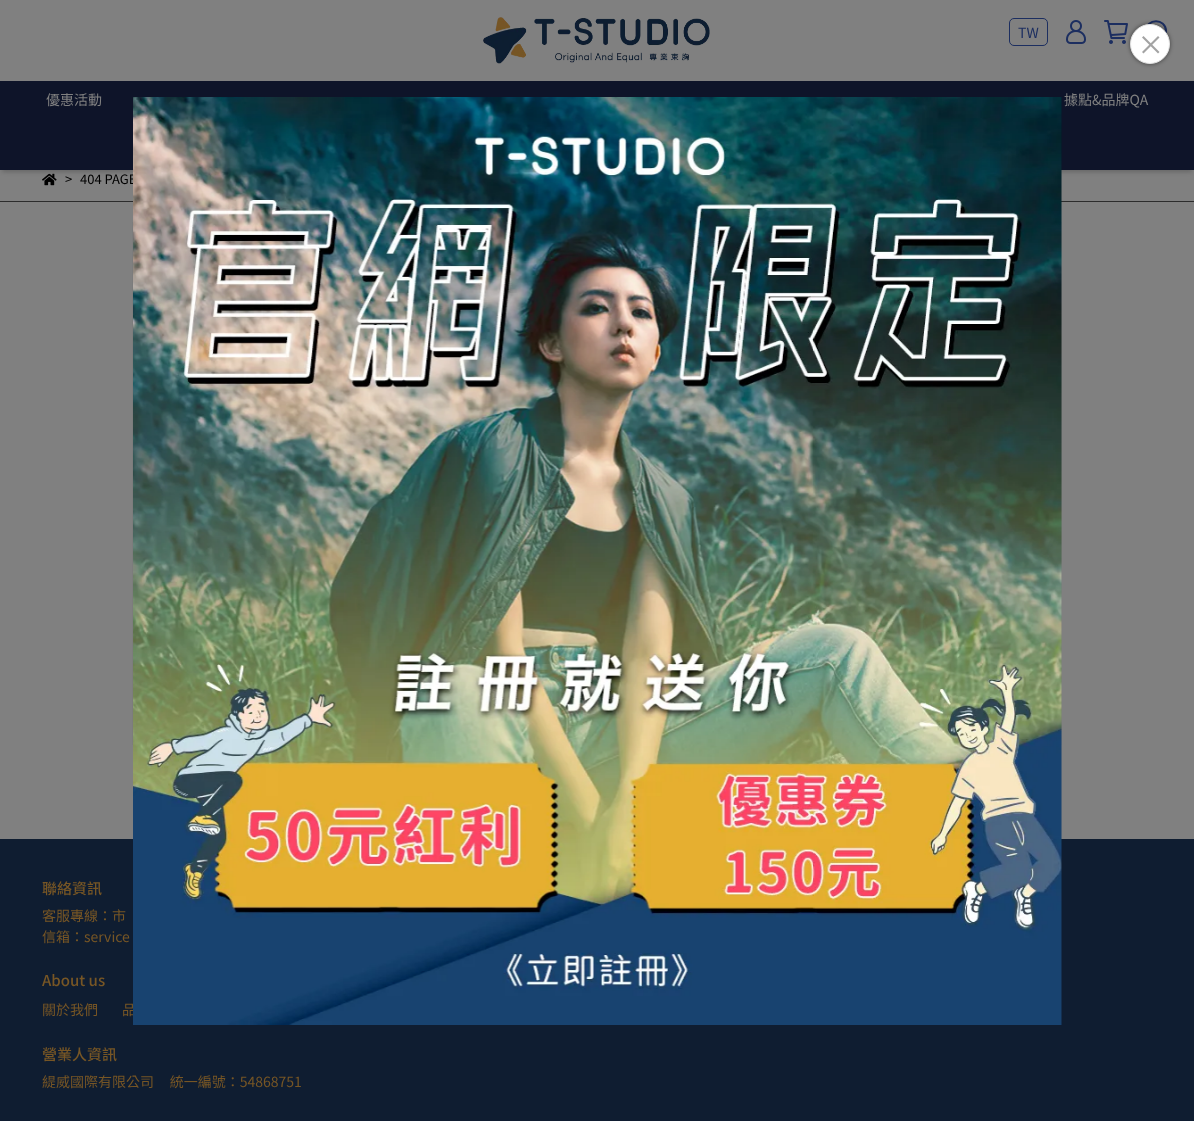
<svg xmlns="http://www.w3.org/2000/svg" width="1194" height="1121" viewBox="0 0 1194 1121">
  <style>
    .t1 { font: 13px Noto Sans TC; fill: #000; }
    .t2 { font: 14px Noto Sans TC; fill: #775625; }
    .t3 { font: 14px Noto Sans TC; fill: #1c2e60; }
    .t4 { font: 14px Noto Sans TC; fill: #808080; }
    .t5 { font: 500 15px Noto Sans TC; fill: #775625; }
  </style>
  <rect width="100%" height="100%" fill="#808080"/>
  <image x="1104" y="20" width="24" height="24" href="images/4.png"/>
  <path d="M1166 31C1166 44 1146 44 1146 31C1146 18 1166 18 1166 31Z" fill="none" stroke="#1c2e60" stroke-width="2" stroke-linecap="round" stroke-linejoin="round"/>
  <rect x="1130" y="24" width="40" height="40" rx="20" fill="#00000080" filter="blur(2px)"/>
  <circle cx="1150" cy="44" r="19.5" fill="#fff" stroke="#e2e2e2"/>
  <path d="M1143.5 36L1159.5 52L1158 53.5L1142 37.5Z" fill="#a3a3a3"/>
  <path d="M1142 52L1158 36L1159.5 37.5L1143.5 53.5Z" fill="#a3a3a3"/>
  <image x="42" y="173" width="15" height="13" href="images/5.png"/>
  <rect x="2" y="87" width="1190" height="85" fill="#00000033" filter="blur(2px)"/>
  <rect x="0" y="81" width="1194" height="89" fill="#0e1429"/>
  <rect x="0" y="201" width="1194" height="1" fill="#2c2c2c"/>
  <text x="80" y="184" class="t1">404 PAGE</text>
  <image x="132" y="222" width="930" height="523" href="images/6.png"/>
  <rect x="0" y="839" width="1194" height="282" fill="#0f1d31"/>
  <text x="122" y="1015" class="t2">品</text>
  <image x="133" y="97" width="929" height="928" href="images/1.png"/>
  <image x="483" y="17" width="227" height="47" href="images/2.png"/>
  <rect x="1009.5" y="18.5" width="38" height="27" rx="4.5" fill="none" stroke="#1c2e60"/>
  <text x="1018" y="38" class="t3">TW</text>
  <image x="1066" y="20" width="20" height="24" href="images/3.png"/>
  <text x="46" y="105" class="t4">優惠活動</text>
  <text x="1064" y="105" class="t4">據點&amp;品牌QA</text>
  <text x="65" y="184" class="t1">&gt;</text>
  <text x="42" y="894" class="t5">聯絡資訊</text>
  <text x="42" y="921" class="t2">客服專線：市</text>
  <text x="42" y="942" class="t2">信箱：service</text>
  <text x="42" y="986" class="t5">About us</text>
  <text x="42" y="1015" class="t2">關於我們</text>
  <text x="42" y="1060" class="t5">營業人資訊</text>
  <text x="42" y="1087" class="t2" xml:space="preserve">緹威國際有限公司     統一編號：54868751</text>
</svg>
